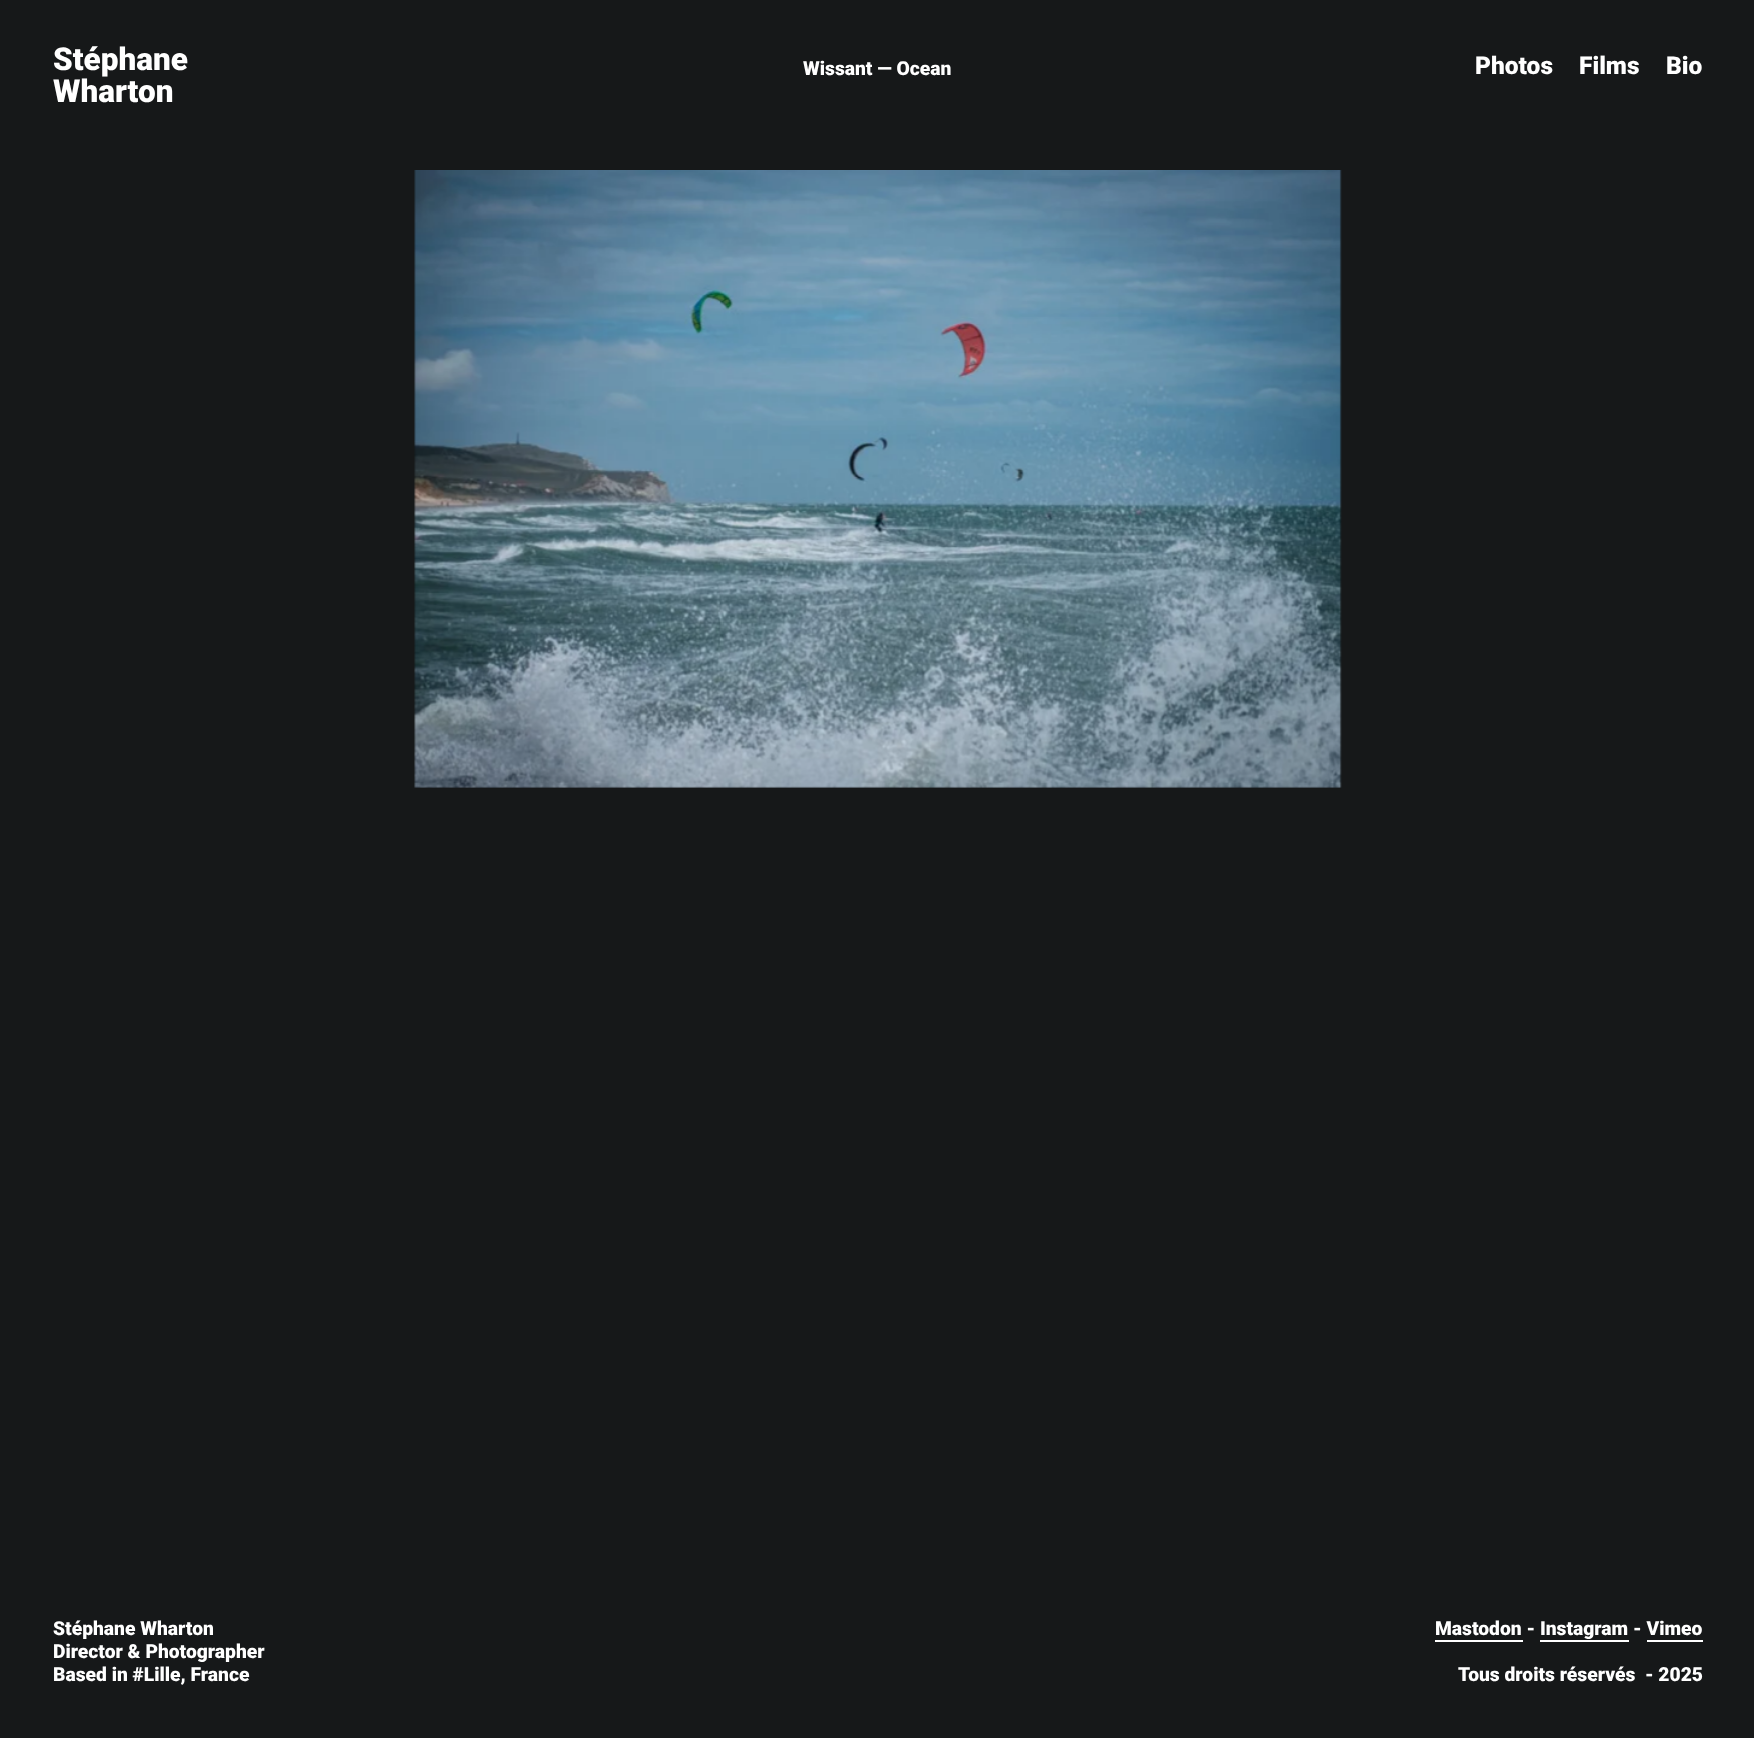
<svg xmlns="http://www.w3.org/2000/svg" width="1754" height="1738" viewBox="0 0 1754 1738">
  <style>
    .t1 { font: 900 31.5px Roboto; fill: #fff; }
    .t2 { font: 900 24.5px Roboto; fill: #fff; }
    .t3 { font: 900 19.25px Roboto; fill: #fff; }
  </style>
  <rect width="100%" height="100%" fill="#161819"/>
  <text x="53" y="70" class="t1">Stéphane</text>
  <text x="53" y="102" class="t1">Wharton</text>
  <text x="1475" y="74" class="t2">Photos</text>
  <text x="1579" y="74" class="t2">Films</text>
  <text x="1666" y="74" class="t2">Bio</text>
  <text x="803" y="75" class="t3">Wissant — Ocean</text>
  <image x="414" y="170" width="928" height="618" href="images/1.png"/>
  <text x="53" y="1635" class="t3">Stéphane Wharton</text>
  <text x="53" y="1658" class="t3">Director &amp; Photographer</text>
  <text x="53" y="1681" class="t3">Based in #Lille, France</text>
  <text x="1435" y="1635" class="t3">Mastodon - Instagram - Vimeo</text>
  <rect x="1435" y="1640" width="88" height="2" fill="#fff"/>
  <rect x="1540" y="1640" width="89" height="2" fill="#fff"/>
  <rect x="1647" y="1640" width="56" height="2" fill="#fff"/>
  <text x="1458" y="1681" class="t3" xml:space="preserve">Tous droits réservés  - 2025</text>
</svg>
